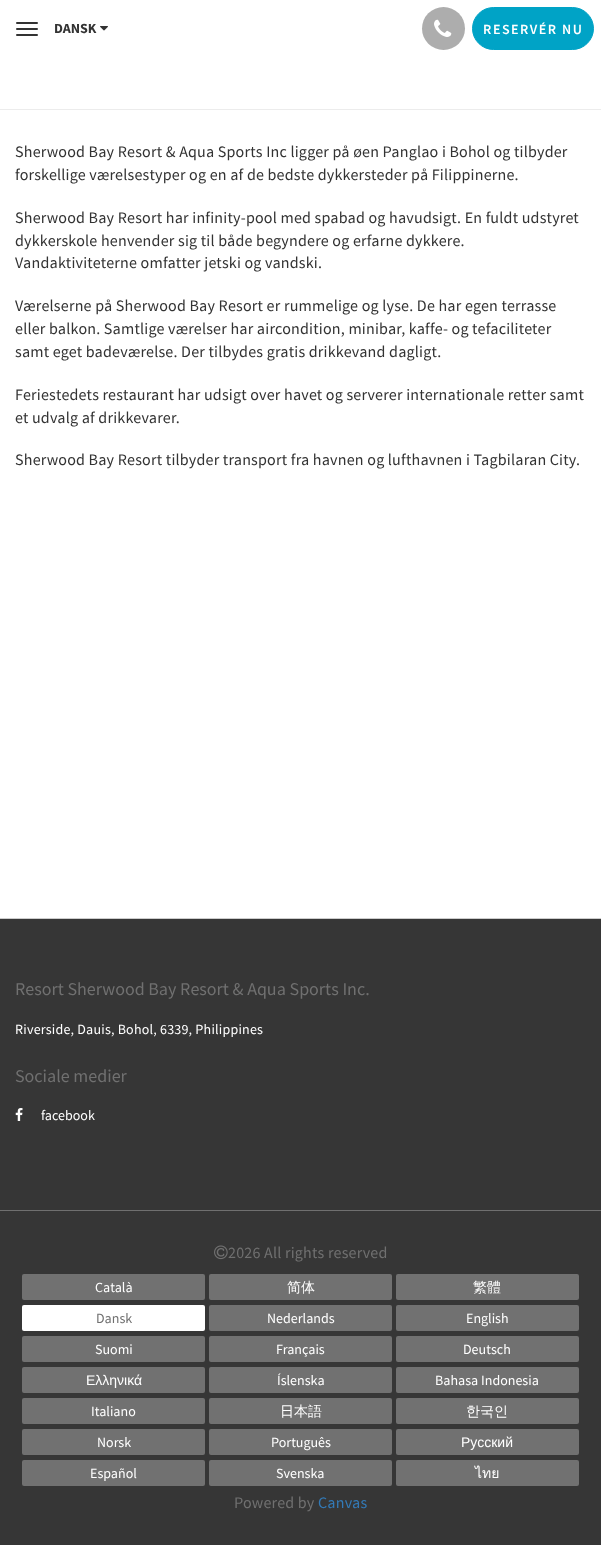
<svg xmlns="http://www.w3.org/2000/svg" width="601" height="1545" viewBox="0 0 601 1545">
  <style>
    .t1 { font: bold 14px Source Sans Pro; fill: #333; }
    .t2 { font: 600 14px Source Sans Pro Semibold; letter-spacing: 1.5px; fill: #fff; }
    .t3 { font: 16px Source Sans Pro; letter-spacing: 0.2px; fill: #333; }
    .t4 { font: 18px Source Sans Pro; fill: #707070; }
    .t5 { font: 14px Source Sans Pro; letter-spacing: 0.2px; fill: #fff; }
    .t6 { font: 14px Source Sans Pro; fill: #fff; }
    .t7 { font: 16px Source Sans Pro; letter-spacing: 0.2px; fill: #707070; }
    .t8 { font: 500 14px WenQuanYi Zen Hei; fill: #fff; }
    .t9 { font: 14px Source Sans Pro; fill: #707070; }
    .t10 { font: 14px Liberation Sans; fill: #fff; }
    .t11 { font: 14px Loma; fill: #fff; }
    .t12 { font: 16px Source Sans Pro; letter-spacing: 0.2px; fill: #337ab7; }
  </style>
  <rect width="100%" height="100%" fill="#fff"/>
  <rect x="16" y="22" width="22" height="2" rx="1" fill="#333"/>
  <rect x="16" y="28" width="22" height="2" rx="1" fill="#333"/>
  <rect x="16" y="34" width="22" height="2" rx="1" fill="#333"/>
  <text x="54" y="33" class="t1">DANSK</text>
  <image x="100" y="26" width="8" height="5" href="images/1.png"/>
  <circle cx="443.5" cy="28.5" r="21.5" fill="#adadad"/>
  <image x="434" y="19" width="18" height="18" href="images/2.png"/>
  <rect x="472.5" y="7.5" width="121" height="42" rx="21" fill="#00a3c6" stroke="#00a3c6"/>
  <text x="483" y="34" class="t2">RESERVÉR NU</text>
  <rect x="0" y="109" width="601" height="1" fill="#ececec"/>
  <text x="15" y="157" class="t3">Sherwood Bay Resort &amp; Aqua Sports Inc ligger på øen Panglao i Bohol og tilbyder</text>
  <text x="15" y="180" class="t3">forskellige værelsestyper og en af de bedste dykkersteder på Filippinerne.</text>
  <text x="15" y="223" class="t3">Sherwood Bay Resort har infinity-pool med spabad og havudsigt. En fuldt udstyret</text>
  <text x="15" y="246" class="t3">dykkerskole henvender sig til både begyndere og erfarne dykkere.</text>
  <text x="15" y="268" class="t3">Vandaktiviteterne omfatter jetski og vandski.</text>
  <text x="15" y="311" class="t3">Værelserne på Sherwood Bay Resort er rummelige og lyse. De har egen terrasse</text>
  <text x="15" y="334" class="t3">eller balkon. Samtlige værelser har aircondition, minibar, kaffe- og tefaciliteter</text>
  <text x="15" y="357" class="t3">samt eget badeværelse. Der tilbydes gratis drikkevand dagligt.</text>
  <text x="15" y="400" class="t3">Feriestedets restaurant har udsigt over havet og serverer internationale retter samt</text>
  <text x="15" y="423" class="t3">et udvalg af drikkevarer.</text>
  <text x="15" y="465" class="t3">Sherwood Bay Resort tilbyder transport fra havnen og lufthavnen i Tagbilaran City.</text>
  <rect x="0" y="919" width="601" height="291" fill="#363636"/>
  <rect x="0" y="918" width="601" height="1" fill="#ccc"/>
  <rect x="0" y="1210" width="601" height="1" fill="#707070"/>
  <text x="15" y="995" class="t4">Resort Sherwood Bay Resort &amp; Aqua Sports Inc.</text>
  <text x="15" y="1034" class="t5">Riverside, Dauis, Bohol, 6339, Philippines</text>
  <text x="15" y="1082" class="t4">Sociale medier</text>
  <image x="15" y="1108" width="8" height="13" href="images/3.png"/>
  <text x="41" y="1120" class="t6">facebook</text>
  <rect x="0" y="1211" width="601" height="334" fill="#363636"/>
  <image x="214" y="1245" width="14" height="15" href="images/4.png"/>
  <text x="228" y="1258" class="t7">2026 All rights reserved</text>
  <rect x="22" y="1274" width="183" height="26" rx="2" fill="#717171"/>
  <text x="95" y="1292" class="t6">Català</text>
  <rect x="209" y="1274" width="183" height="26" rx="2" fill="#717171"/>
  <text x="287" y="1292" class="t8">简体</text>
  <rect x="396" y="1274" width="183" height="26" rx="2" fill="#717171"/>
  <text x="473" y="1292" class="t8">繁體</text>
  <rect x="22" y="1305" width="183" height="26" rx="2" fill="#fff"/>
  <text x="96" y="1323" class="t9">Dansk</text>
  <rect x="209" y="1305" width="183" height="26" rx="2" fill="#717171"/>
  <text x="267" y="1323" class="t6">Nederlands</text>
  <rect x="396" y="1305" width="183" height="26" rx="2" fill="#717171"/>
  <text x="466" y="1323" class="t6">English</text>
  <rect x="22" y="1336" width="183" height="26" rx="2" fill="#717171"/>
  <text x="95" y="1354" class="t6">Suomi</text>
  <rect x="209" y="1336" width="183" height="26" rx="2" fill="#717171"/>
  <text x="276" y="1354" class="t6">Français</text>
  <rect x="396" y="1336" width="183" height="26" rx="2" fill="#717171"/>
  <text x="463" y="1354" class="t6">Deutsch</text>
  <rect x="22" y="1367" width="183" height="26" rx="2" fill="#717171"/>
  <text x="86" y="1385" class="t10">Ελληνικά</text>
  <rect x="209" y="1367" width="183" height="26" rx="2" fill="#717171"/>
  <text x="277" y="1385" class="t6">Íslenska</text>
  <rect x="396" y="1367" width="183" height="26" rx="2" fill="#717171"/>
  <text x="435" y="1385" class="t6">Bahasa Indonesia</text>
  <rect x="22" y="1398" width="183" height="26" rx="2" fill="#717171"/>
  <text x="91" y="1416" class="t6">Italiano</text>
  <rect x="209" y="1398" width="183" height="26" rx="2" fill="#717171"/>
  <text x="280" y="1416" class="t8">日本語</text>
  <rect x="396" y="1398" width="183" height="26" rx="2" fill="#717171"/>
  <text x="466" y="1416" class="t8">한국인</text>
  <rect x="22" y="1429" width="183" height="26" rx="2" fill="#717171"/>
  <text x="97" y="1447" class="t6">Norsk</text>
  <rect x="209" y="1429" width="183" height="26" rx="2" fill="#717171"/>
  <text x="271" y="1447" class="t6">Português</text>
  <rect x="396" y="1429" width="183" height="26" rx="2" fill="#717171"/>
  <text x="461" y="1447" class="t10">Русский</text>
  <rect x="22" y="1460" width="183" height="26" rx="2" fill="#717171"/>
  <text x="90" y="1478" class="t6">Español</text>
  <rect x="209" y="1460" width="183" height="26" rx="2" fill="#717171"/>
  <text x="276" y="1478" class="t6">Svenska</text>
  <rect x="396" y="1460" width="183" height="26" rx="2" fill="#717171"/>
  <text x="475" y="1478" class="t11">ไทย</text>
  <text x="234" y="1508" class="t7">Powered by</text>
  <text x="318" y="1508" class="t12">Canvas</text>
</svg>
